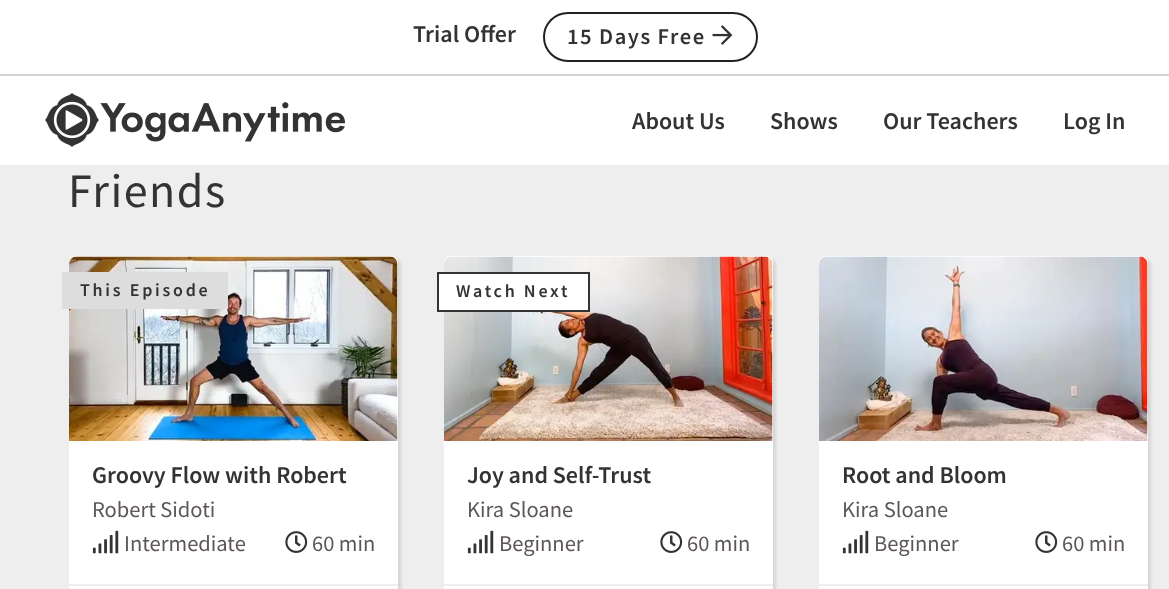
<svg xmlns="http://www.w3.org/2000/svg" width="1169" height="589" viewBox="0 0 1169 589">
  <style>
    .t1 { font: 600 24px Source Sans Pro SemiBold; fill: #333; }
    .t2 { font: 600 22.5px Source Sans Pro SemiBold; letter-spacing: 1.5px; fill: #333; }
    .t3 { font: 48px Source Sans Pro; letter-spacing: 1.5px; fill: #333; }
    .t4 { font: 600 18px Source Sans Pro SemiBold; letter-spacing: 2.75px; fill: #333; }
    .t5 { font: 22.5px Source Sans Pro; fill: #5c5756; }
  </style>
  <rect width="100%" height="100%" fill="#eee"/>
  <rect x="0" y="0" width="1169" height="165" fill="#fff"/>
  <rect x="0" y="74" width="1169" height="2" fill="#d3d3d3"/>
  <text x="413" y="42" class="t1">Trial Offer</text>
  <rect x="544" y="13" width="213" height="48" rx="24" fill="none" stroke="#212121" stroke-width="2"/>
  <text x="567" y="44" class="t2">15 Days Free</text>
  <image x="712" y="25" width="21" height="20" href="images/1.png"/>
  <image x="45" y="93" width="300" height="54" href="images/2.png"/>
  <text x="632" y="129" class="t1">About Us</text>
  <text x="770" y="129" class="t1">Shows</text>
  <text x="883" y="129" class="t1">Our Teachers</text>
  <text x="1063" y="129" class="t1">Log In</text>
  <text x="68" y="207" class="t3">Friends</text>
  <rect x="71" y="258" width="330" height="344" rx="8" fill="#0000001a" filter="blur(1.5px)"/>
  <rect x="68" y="255" width="330" height="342" rx="8" fill="#fff"/>
  <path d="M75 255H390C394 255 398 258 398 262V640C398 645 394 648 390 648H75C71 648 68 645 68 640V262C68 258 71 255 75 255ZM75 256H390C394 256 398 259 398 262V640C398 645 394 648 390 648H75C72 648 69 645 69 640V262C69 259 72 256 75 256Z" fill="#eee" fill-rule="evenodd"/>
  <image x="69" y="256" width="329" height="185" href="images/3.png"/>
  <rect x="62" y="272" width="166" height="37" fill="#ddd"/>
  <text x="80" y="296" class="t4">This Episode</text>
  <text x="92" y="483" class="t1">Groovy Flow with Robert</text>
  <text x="92" y="517" class="t5">Robert Sidoti</text>
  <image x="92" y="530" width="27" height="24" href="images/4.png"/>
  <text x="124" y="551" class="t5">Intermediate</text>
  <image x="285" y="531" width="23" height="22" href="images/5.png"/>
  <text x="312" y="551" class="t5">60 min</text>
  <rect x="69" y="584" width="329" height="2" fill="#eee"/>
  <rect x="446" y="258" width="330" height="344" rx="8" fill="#0000001a" filter="blur(1.5px)"/>
  <rect x="443" y="255" width="330" height="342" rx="8" fill="#fff"/>
  <path d="M450 255H765C769 255 772 258 772 262V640C772 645 769 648 765 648H450C446 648 442 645 442 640V262C442 258 446 255 450 255ZM450 256H765C769 256 772 259 772 262V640C772 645 769 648 765 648H450C447 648 444 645 444 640V262C444 259 447 256 450 256Z" fill="#eee" fill-rule="evenodd"/>
  <image x="444" y="256" width="329" height="185" href="images/6.png"/>
  <rect x="438" y="273" width="151" height="38" fill="#fff" stroke="#333" stroke-width="2"/>
  <text x="456" y="297" class="t4">Watch Next</text>
  <text x="467" y="483" class="t1">Joy and Self-Trust</text>
  <text x="467" y="517" class="t5">Kira Sloane</text>
  <image x="467" y="530" width="27" height="24" href="images/4.png"/>
  <text x="499" y="551" class="t5">Beginner</text>
  <image x="660" y="531" width="23" height="22" href="images/5.png"/>
  <text x="687" y="551" class="t5">60 min</text>
  <rect x="444" y="584" width="329" height="2" fill="#eee"/>
  <rect x="821" y="258" width="330" height="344" rx="8" fill="#0000001a" filter="blur(1.5px)"/>
  <rect x="818" y="255" width="330" height="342" rx="8" fill="#fff"/>
  <path d="M825 255H1140C1144 255 1148 258 1148 262V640C1148 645 1144 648 1140 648H825C821 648 818 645 818 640V262C818 258 821 255 825 255ZM825 256H1140C1144 256 1148 259 1148 262V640C1148 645 1144 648 1140 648H825C822 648 819 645 819 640V262C819 259 822 256 825 256Z" fill="#eee" fill-rule="evenodd"/>
  <image x="819" y="256" width="329" height="185" href="images/7.png"/>
  <text x="842" y="483" class="t1">Root and Bloom</text>
  <text x="842" y="517" class="t5">Kira Sloane</text>
  <image x="842" y="530" width="27" height="24" href="images/4.png"/>
  <text x="874" y="551" class="t5">Beginner</text>
  <image x="1035" y="531" width="23" height="22" href="images/5.png"/>
  <text x="1062" y="551" class="t5">60 min</text>
  <rect x="819" y="584" width="329" height="2" fill="#eee"/>
</svg>
